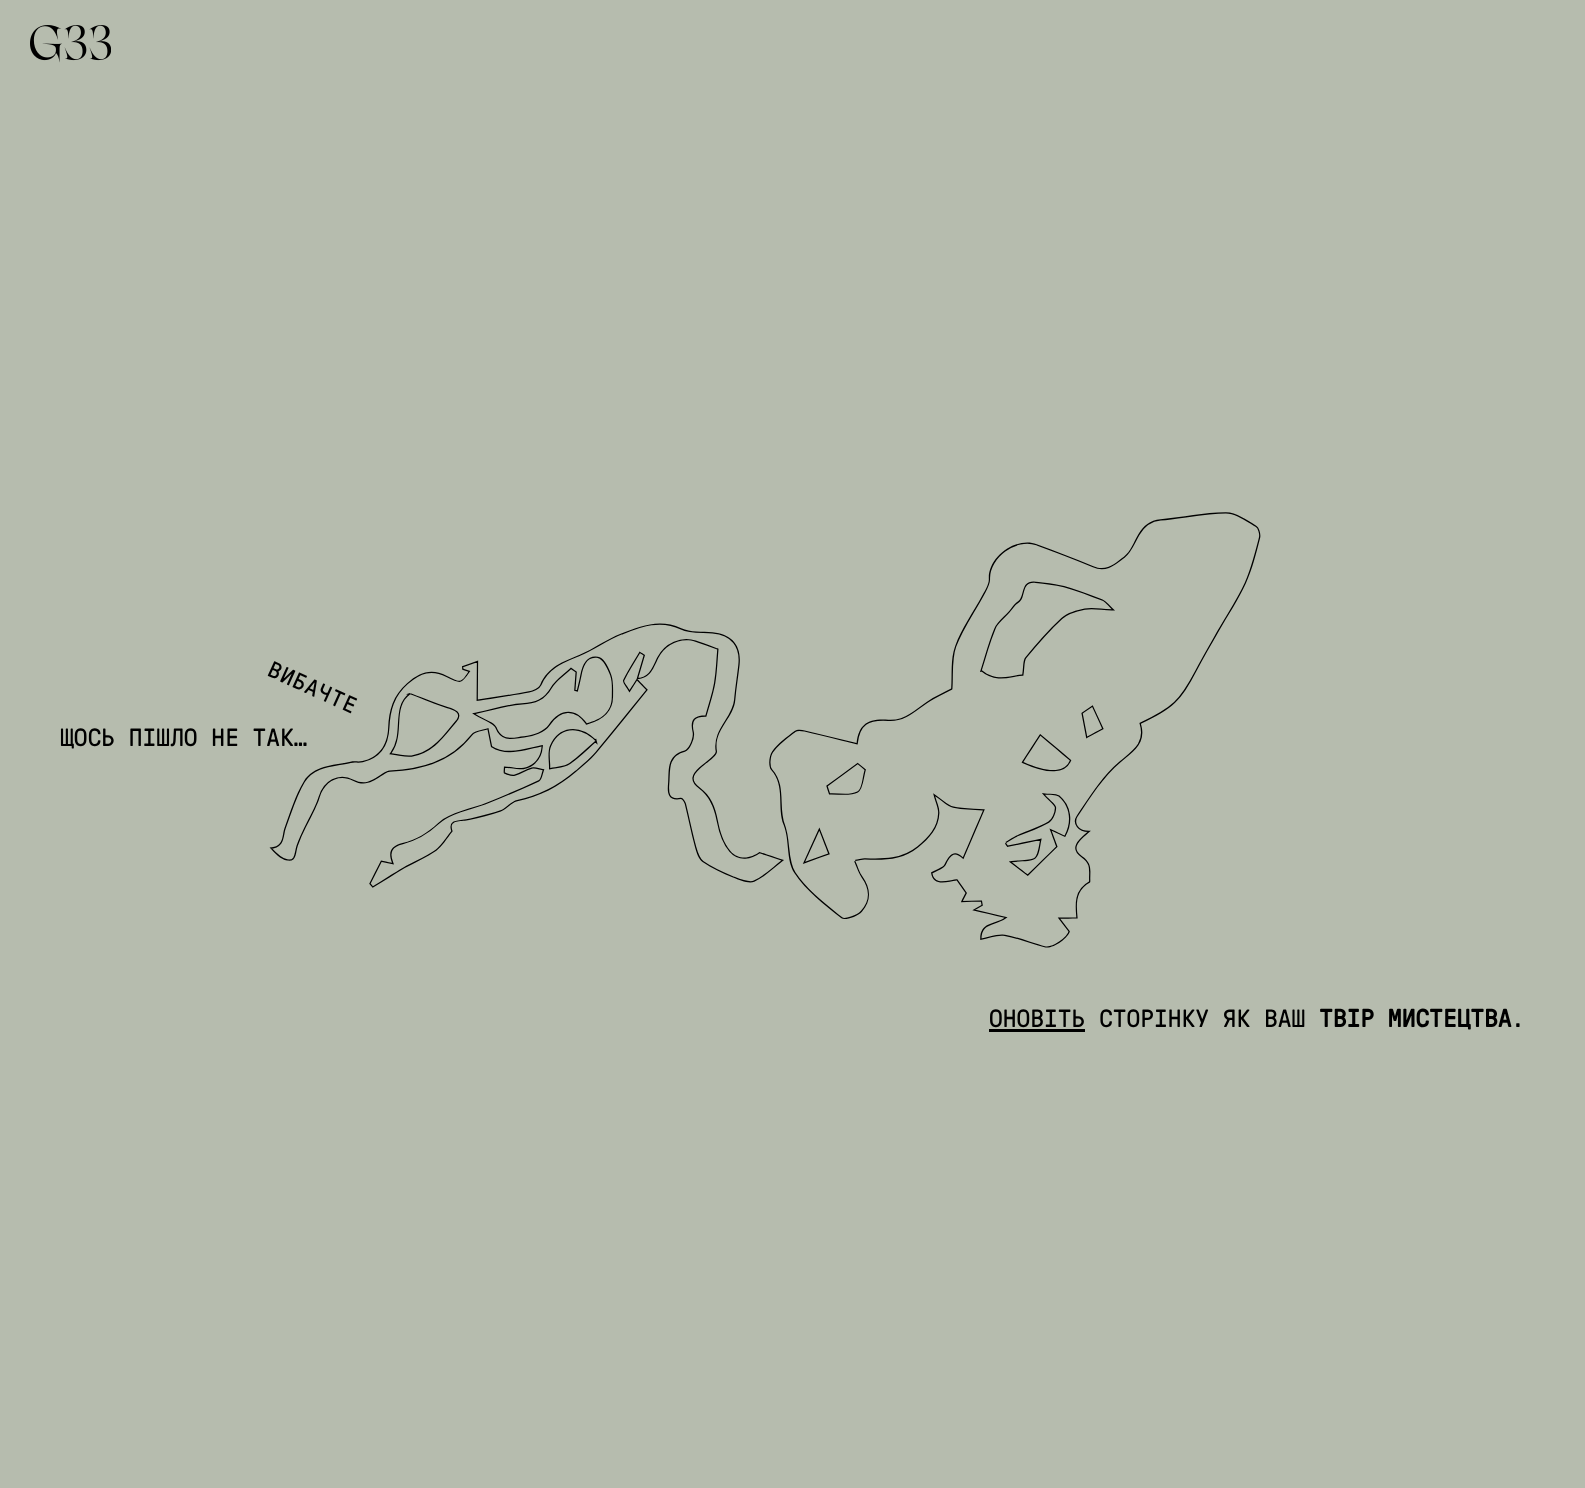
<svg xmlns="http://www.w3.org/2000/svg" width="1585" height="1488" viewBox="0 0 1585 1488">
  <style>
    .t1 { font: 23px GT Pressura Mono; letter-spacing: 1px; fill: #000; }
    .t2 { font: 25px GT Pressura Mono; fill: #000; }
    .t3 { font: bold 25px GT Pressura Mono; fill: #000; }
  </style>
  <rect width="100%" height="100%" fill="#b6bcae"/>
  <image x="30" y="25" width="81" height="38" href="images/1.png"/>
  <image x="269" y="512" width="992" height="436" href="images/2.png"/>
  <text x="266" y="675" transform="rotate(24.4 266 675)" class="t1">ВИБАЧТЕ</text>
  <text x="60" y="746" class="t2">ЩОСЬ ПІШЛО НЕ ТАК…</text>
  <text x="989" y="1027" class="t2">ОНОВІТЬ СТОРІНКУ ЯК ВАШ</text>
  <rect x="989" y="1029" width="96" height="3" fill="#000"/>
  <text x="1319" y="1027" class="t3">ТВІР МИСТЕЦТВА</text>
  <text x="1511" y="1027" class="t2">.</text>
</svg>
